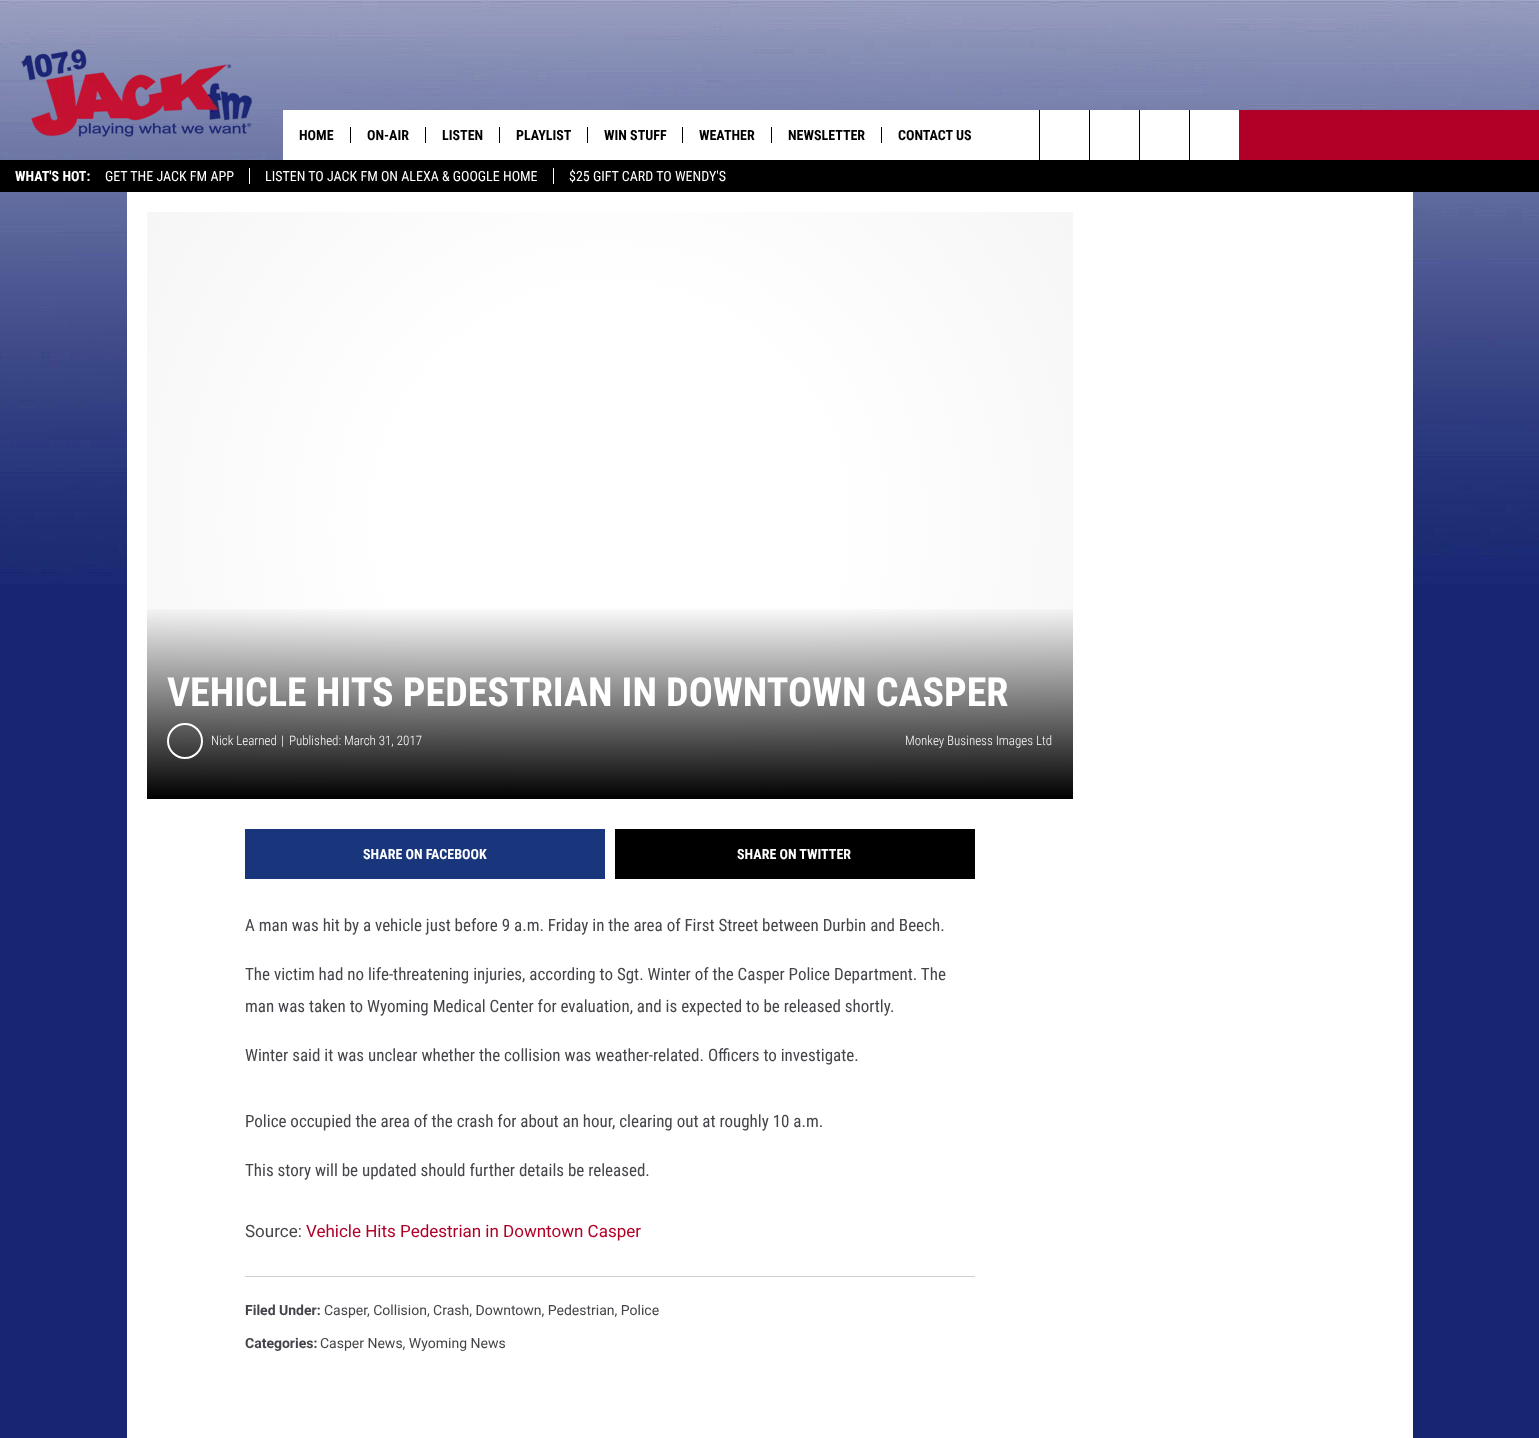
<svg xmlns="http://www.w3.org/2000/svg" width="1539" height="1438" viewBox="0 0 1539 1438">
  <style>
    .t1 { font: bold 14px Roboto Condensed; fill: #000; }
    .t2 { font: bold 14px Roboto Condensed; fill: #fff; }
    .t3 { font: 14px Roboto Condensed; fill: #fff; }
    .t4 { font: bold 40px Roboto Condensed; fill: #fff; }
    .t5 { font: 300 13px Roboto Condensed; fill: #fff; }
    .t6 { font: 17px Roboto Condensed; fill: #45444a; }
    .t7 { font: 17px Roboto; fill: #45444a; }
    .t8 { font: 17px Roboto; fill: #b00028; }
    .t9 { font: bold 14px Roboto; fill: #45444a; }
    .t10 { font: 14px Roboto; fill: #45444a; }
  </style>
  <defs>
    <radialGradient id="g1" gradientUnits="userSpaceOnUse" cx="610" cy="521" r="556"><stop offset="0.4" stop-color="#fff"/><stop offset="1" stop-color="#f7f6f7"/></radialGradient>
    <linearGradient id="g2" gradientUnits="userSpaceOnUse" x1="610" y1="605" x2="610" y2="799"><stop offset="0" stop-color="#000" stop-opacity="0"/><stop offset="1" stop-color="#000"/></linearGradient>
  </defs>
  <rect width="100%" height="100%" fill="#162671"/>
  <image x="0" y="192" width="1539" height="392" href="images/1.png"/>
  <image x="0" y="0" width="1539" height="160" href="images/2.png"/>
  <image x="21" y="49" width="231" height="88" href="images/3.png"/>
  <rect x="283" y="110" width="956" height="50" fill="#fff"/>
  <text x="299" y="140" class="t1">HOME</text>
  <rect x="350" y="127" width="1" height="16" fill="#000"/>
  <text x="367" y="140" class="t1">ON-AIR</text>
  <rect x="425" y="127" width="1" height="16" fill="#000"/>
  <text x="442" y="140" class="t1">LISTEN</text>
  <rect x="499" y="127" width="1" height="16" fill="#000"/>
  <text x="516" y="140" class="t1">PLAYLIST</text>
  <rect x="587" y="127" width="1" height="16" fill="#000"/>
  <text x="604" y="140" class="t1">WIN STUFF</text>
  <rect x="682" y="127" width="1" height="16" fill="#000"/>
  <text x="699" y="140" class="t1">WEATHER</text>
  <rect x="771" y="127" width="1" height="16" fill="#000"/>
  <text x="788" y="140" class="t1">NEWSLETTER</text>
  <rect x="881" y="127" width="1" height="16" fill="#000"/>
  <text x="898" y="140" class="t1">CONTACT US</text>
  <rect x="1039" y="110" width="1" height="50" fill="#000"/>
  <rect x="1089" y="110" width="1" height="50" fill="#000"/>
  <rect x="1139" y="110" width="1" height="50" fill="#000"/>
  <rect x="1189" y="110" width="1" height="50" fill="#000"/>
  <rect x="1239" y="110" width="300" height="50" fill="#b00028"/>
  <rect x="0" y="160" width="1539" height="32" fill="#000"/>
  <text x="15" y="181" class="t2">WHAT'S HOT:</text>
  <text x="105" y="181" class="t3">GET THE JACK FM APP</text>
  <text x="265" y="181" class="t3">LISTEN TO JACK FM ON ALEXA &amp; GOOGLE HOME</text>
  <rect x="249" y="168" width="1" height="16" fill="#fff"/>
  <text x="569" y="181" class="t3">$25 GIFT CARD TO WENDY'S</text>
  <rect x="553" y="168" width="1" height="16" fill="#fff"/>
  <rect x="127" y="192" width="1286" height="1246" fill="#fff"/>
  <rect x="147" y="212" width="926" height="586" fill="url(#g1)"/>
  <rect x="147" y="609" width="926" height="190" fill="url(#g2)"/>
  <text x="167" y="706" class="t4">VEHICLE HITS PEDESTRIAN IN DOWNTOWN CASPER</text>
  <circle cx="185" cy="741" r="17" fill="none" stroke="#fff" stroke-width="2"/>
  <text x="211" y="745" class="t5">Nick Learned</text>
  <text x="281" y="745" class="t5">|</text>
  <text x="289" y="745" class="t5">Published: March 31, 2017</text>
  <text x="905" y="745" class="t5">Monkey Business Images Ltd</text>
  <rect x="245" y="829" width="360" height="50" fill="#19367c"/>
  <text x="363" y="859" class="t2">SHARE ON FACEBOOK</text>
  <rect x="615" y="829" width="360" height="50" fill="#000"/>
  <text x="737" y="859" class="t2">SHARE ON TWITTER</text>
  <text x="245" y="931" class="t6">A man was hit by a vehicle just before 9 a.m. Friday in the area of First Street between Durbin and Beech.</text>
  <text x="245" y="980" class="t6">The victim had no life-threatening injuries, according to Sgt. Winter of the Casper Police Department. The</text>
  <text x="245" y="1012" class="t6">man was taken to Wyoming Medical Center for evaluation, and is expected to be released shortly.</text>
  <text x="245" y="1061" class="t6">Winter said it was unclear whether the collision was weather-related. Officers to investigate.</text>
  <text x="245" y="1127" class="t6">Police occupied the area of the crash for about an hour, clearing out at roughly 10 a.m.</text>
  <text x="245" y="1176" class="t6">This story will be updated should further details be released.</text>
  <text x="245" y="1237" class="t7">Source:</text>
  <text x="306" y="1237" class="t8">Vehicle Hits Pedestrian in Downtown Casper</text>
  <rect x="245" y="1276" width="730" height="1" fill="#d1d0d2"/>
  <text x="245" y="1315" class="t9">Filed Under:</text>
  <text x="324" y="1315" class="t10">Casper</text>
  <text x="367" y="1315" class="t10">, Collision, Crash, Downtown, Pedestrian, Police</text>
  <text x="245" y="1348" class="t9">Categories:</text>
  <text x="320" y="1348" class="t10">Casper News, Wyoming News</text>
</svg>
